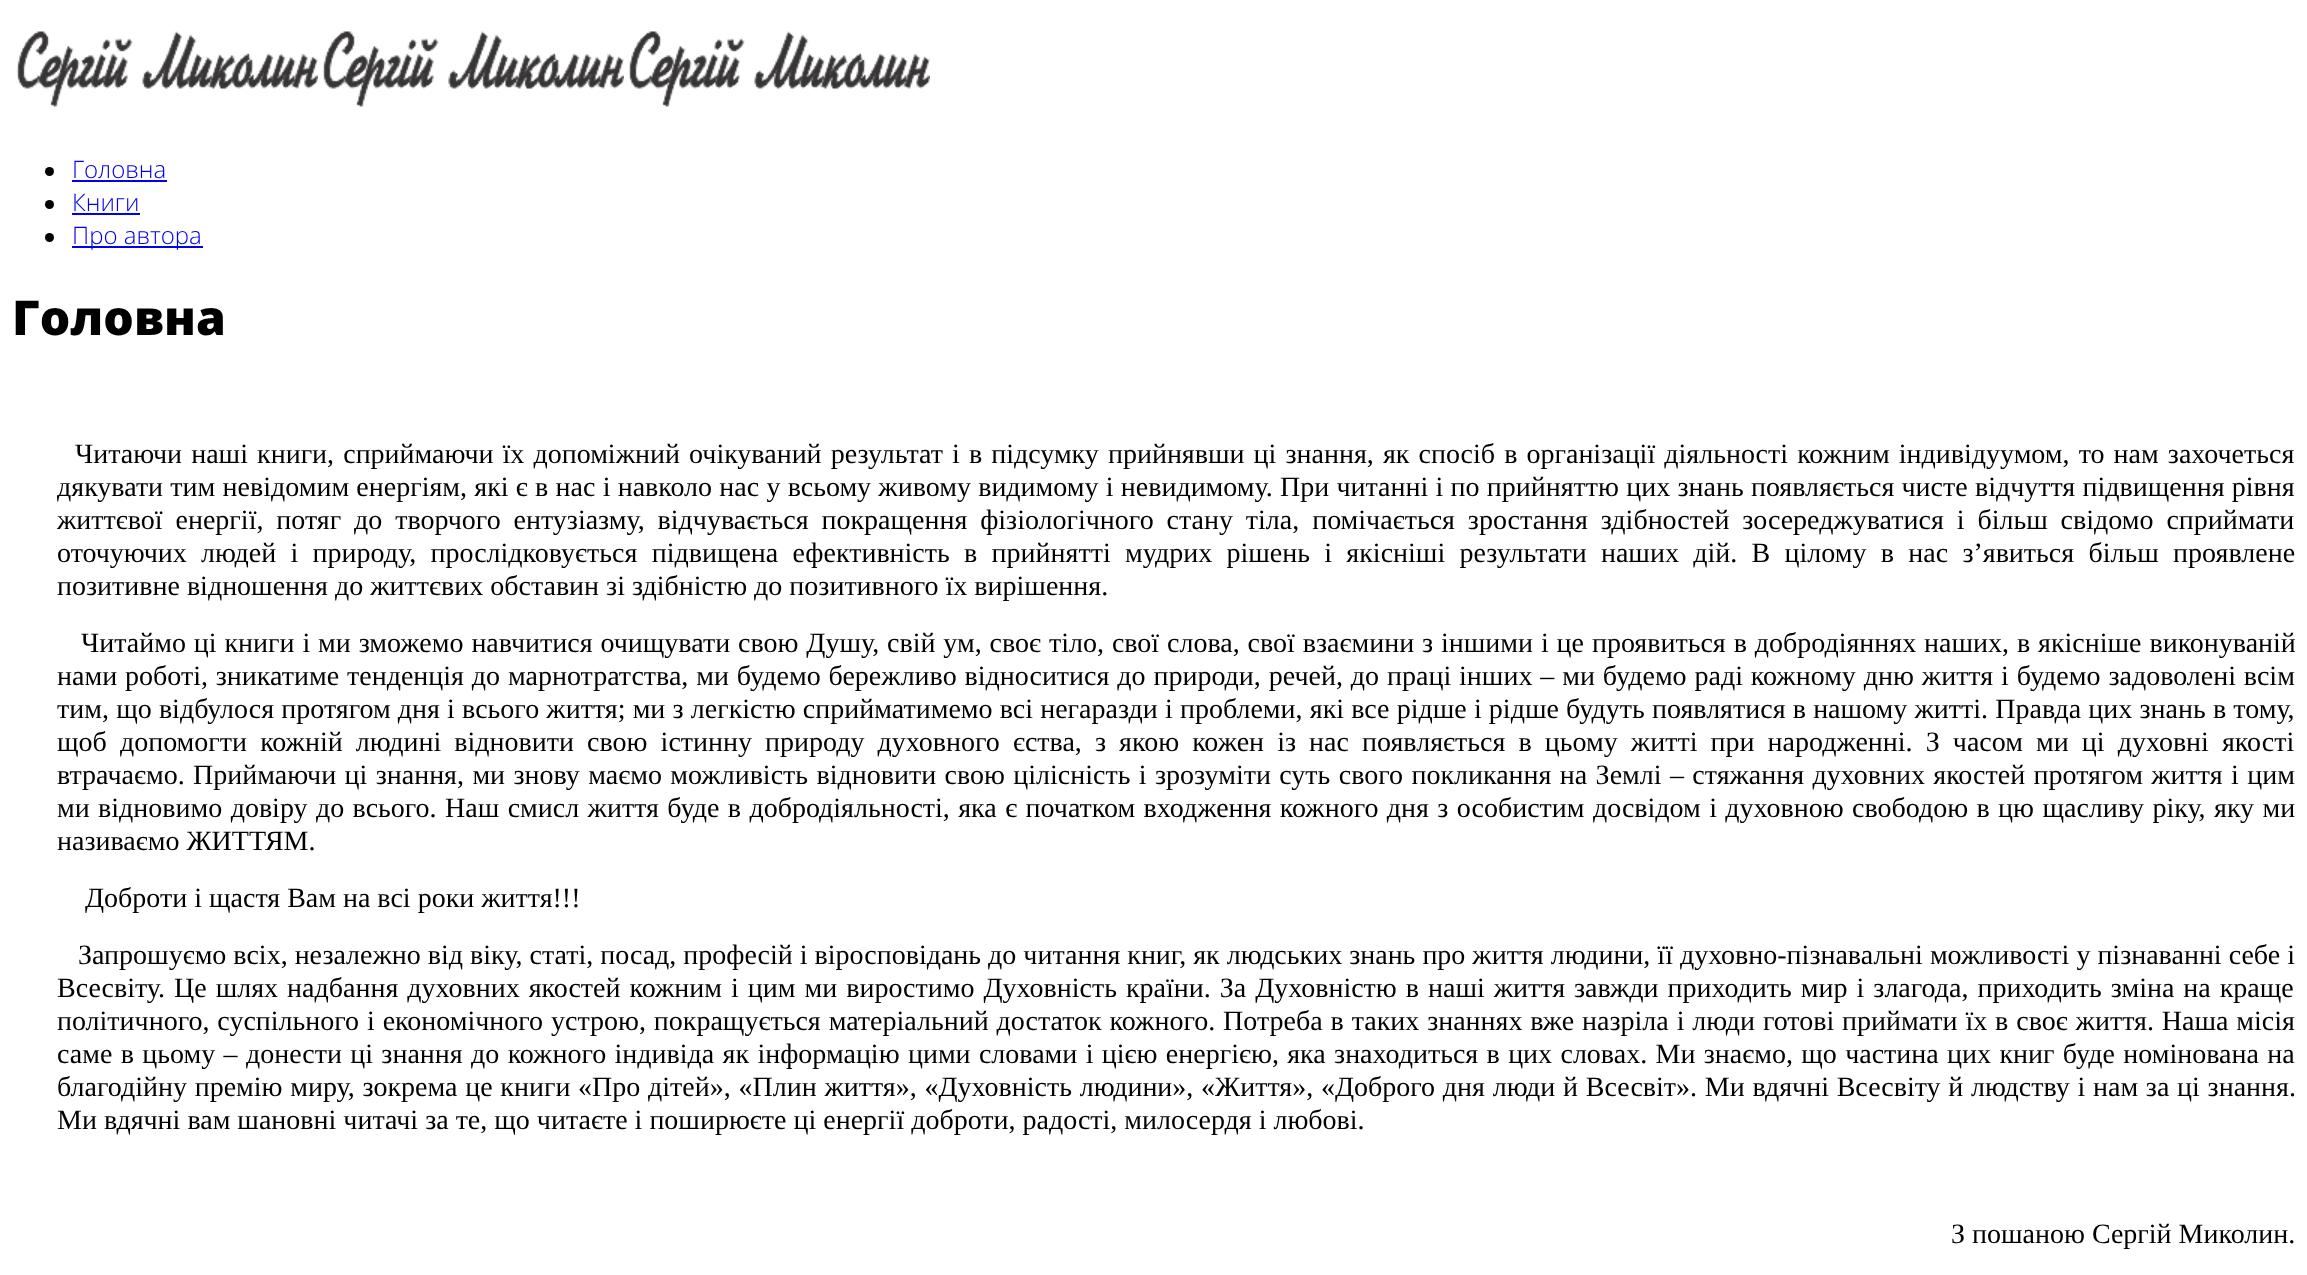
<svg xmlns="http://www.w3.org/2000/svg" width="2307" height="1275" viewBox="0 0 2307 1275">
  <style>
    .t1 { font: 300 24px Open Sans; fill: #00e; }
    .t2 { font: 800 48px Open Sans; fill: #000; }
    .t3 { font: 28px Liberation Serif; fill: #000; }
  </style>
  <rect width="100%" height="100%" fill="#fff"/>
  <image x="16" y="31" width="302" height="76" href="images/1.png"/>
  <image x="322" y="31" width="302" height="76" href="images/2.png"/>
  <image x="628" y="31" width="302" height="76" href="images/1.png"/>
  <circle cx="49.5" cy="171.5" r="4.5" fill="#000"/>
  <text x="72" y="178" class="t1">Головна</text>
  <rect x="72" y="180" width="95" height="2" fill="#00e"/>
  <circle cx="49.5" cy="204.5" r="4.5" fill="#000"/>
  <text x="72" y="211" class="t1">Книги</text>
  <rect x="72" y="213" width="68" height="2" fill="#00e"/>
  <circle cx="49.5" cy="237.5" r="4.5" fill="#000"/>
  <rect x="72" y="246" width="131" height="2" fill="#00e"/>
  <text x="72" y="244" class="t1">Про автора</text>
  <text x="12" y="335" class="t2">Головна</text>
  <text x="75" y="463" word-spacing="2.1" class="t3">Читаючи наші книги, сприймаючи їх допоміжний очікуваний результат і в підсумку прийнявши ці знання, як спосіб в організації діяльності кожним індивідуумом, то нам захочеться</text>
  <text x="57" y="496" word-spacing="0.25" class="t3">дякувати тим невідомим енергіям, які є в нас і навколо нас у всьому живому видимому і невидимому. При читанні і по прийняттю цих знань появляється чисте відчуття підвищення рівня</text>
  <text x="57" y="529" word-spacing="5.9" class="t3">життєвої енергії, потяг до творчого ентузіазму, відчувається покращення фізіологічного стану тіла, помічається зростання здібностей зосереджуватися і більш свідомо сприймати</text>
  <text x="57" y="562" word-spacing="7.3" class="t3">оточуючих людей і природу, прослідковується підвищена ефективність в прийнятті мудрих рішень і якісніші результати наших дій. В цілому в нас з’явиться більш проявлене</text>
  <text x="57" y="595" class="t3">позитивне відношення до життєвих обставин зі здібністю до позитивного їх вирішення.</text>
  <text x="81" y="652" word-spacing="0.9" class="t3">Читаймо ці книги і ми зможемо навчитися очищувати свою Душу, свій ум, своє тіло, свої слова, свої взаємини з іншими і це проявиться в добродіяннях наших, в якісніше виконуваній</text>
  <text x="57" y="685" word-spacing="0.9" class="t3">нами роботі, зникатиме тенденція до марнотратства, ми будемо бережливо відноситися до природи, речей, до праці інших – ми будемо раді кожному дню життя і будемо задоволені всім</text>
  <text x="57" y="718" word-spacing="0.2" class="t3">тим, що відбулося протягом дня і всього життя; ми з легкістю сприйматимемо всі негаразди і проблеми, які все рідше і рідше будуть появлятися в нашому житті. Правда цих знань в тому,</text>
  <text x="57" y="751" word-spacing="6.1" class="t3">щоб допомогти кожній людині відновити свою істинну природу духовного єства, з якою кожен із нас появляється в цьому житті при народженні. З часом ми ці духовні якості</text>
  <text x="57" y="784" word-spacing="1.4" class="t3">втрачаємо. Приймаючи ці знання, ми знову маємо можливість відновити свою цілісність і зрозуміти суть свого покликання на Землі – стяжання духовних якостей протягом життя і цим</text>
  <text x="57" y="817" word-spacing="1.4" class="t3">ми відновимо довіру до всього. Наш смисл життя буде в добродіяльності, яка є початком входження кожного дня з особистим досвідом і духовною свободою в цю щасливу ріку, яку ми</text>
  <text x="57" y="850" class="t3">називаємо ЖИТТЯМ.</text>
  <text x="85" y="907" class="t3">Доброти і щастя Вам на всі роки життя!!!</text>
  <text x="78" y="964" class="t3">Запрошуємо всіх, незалежно від віку, статі, посад, професій і віросповідань до читання книг, як людських знань про життя людини, її духовно-пізнавальні можливості у пізнаванні себе і</text>
  <text x="57" y="997" word-spacing="2" class="t3">Всесвіту. Це шлях надбання духовних якостей кожним і цим ми виростимо Духовність країни. За Духовністю в наші життя завжди приходить мир і злагода, приходить зміна на краще</text>
  <text x="57" y="1030" word-spacing="0.9" class="t3">політичного, суспільного і економічного устрою, покращується матеріальний достаток кожного. Потреба в таких знаннях вже назріла і люди готові приймати їх в своє життя. Наша місія</text>
  <text x="57" y="1063" word-spacing="1.35" class="t3">саме в цьому – донести ці знання до кожного індивіда як інформацію цими словами і цією енергією, яка знаходиться в цих словах. Ми знаємо, що частина цих книг буде номінована на</text>
  <text x="57" y="1096" word-spacing="0.75" class="t3">благодійну премію миру, зокрема це книги «Про дітей», «Плин життя», «Духовність людини», «Життя», «Доброго дня люди й Всесвіт». Ми вдячні Всесвіту й людству і нам за ці знання.</text>
  <text x="57" y="1129" class="t3">Ми вдячні вам шановні читачі за те, що читаєте і поширюєте ці енергії доброти, радості, милосердя і любові.</text>
  <text x="1951" y="1243" class="t3">З пошаною Сергій Миколин.</text>
</svg>
